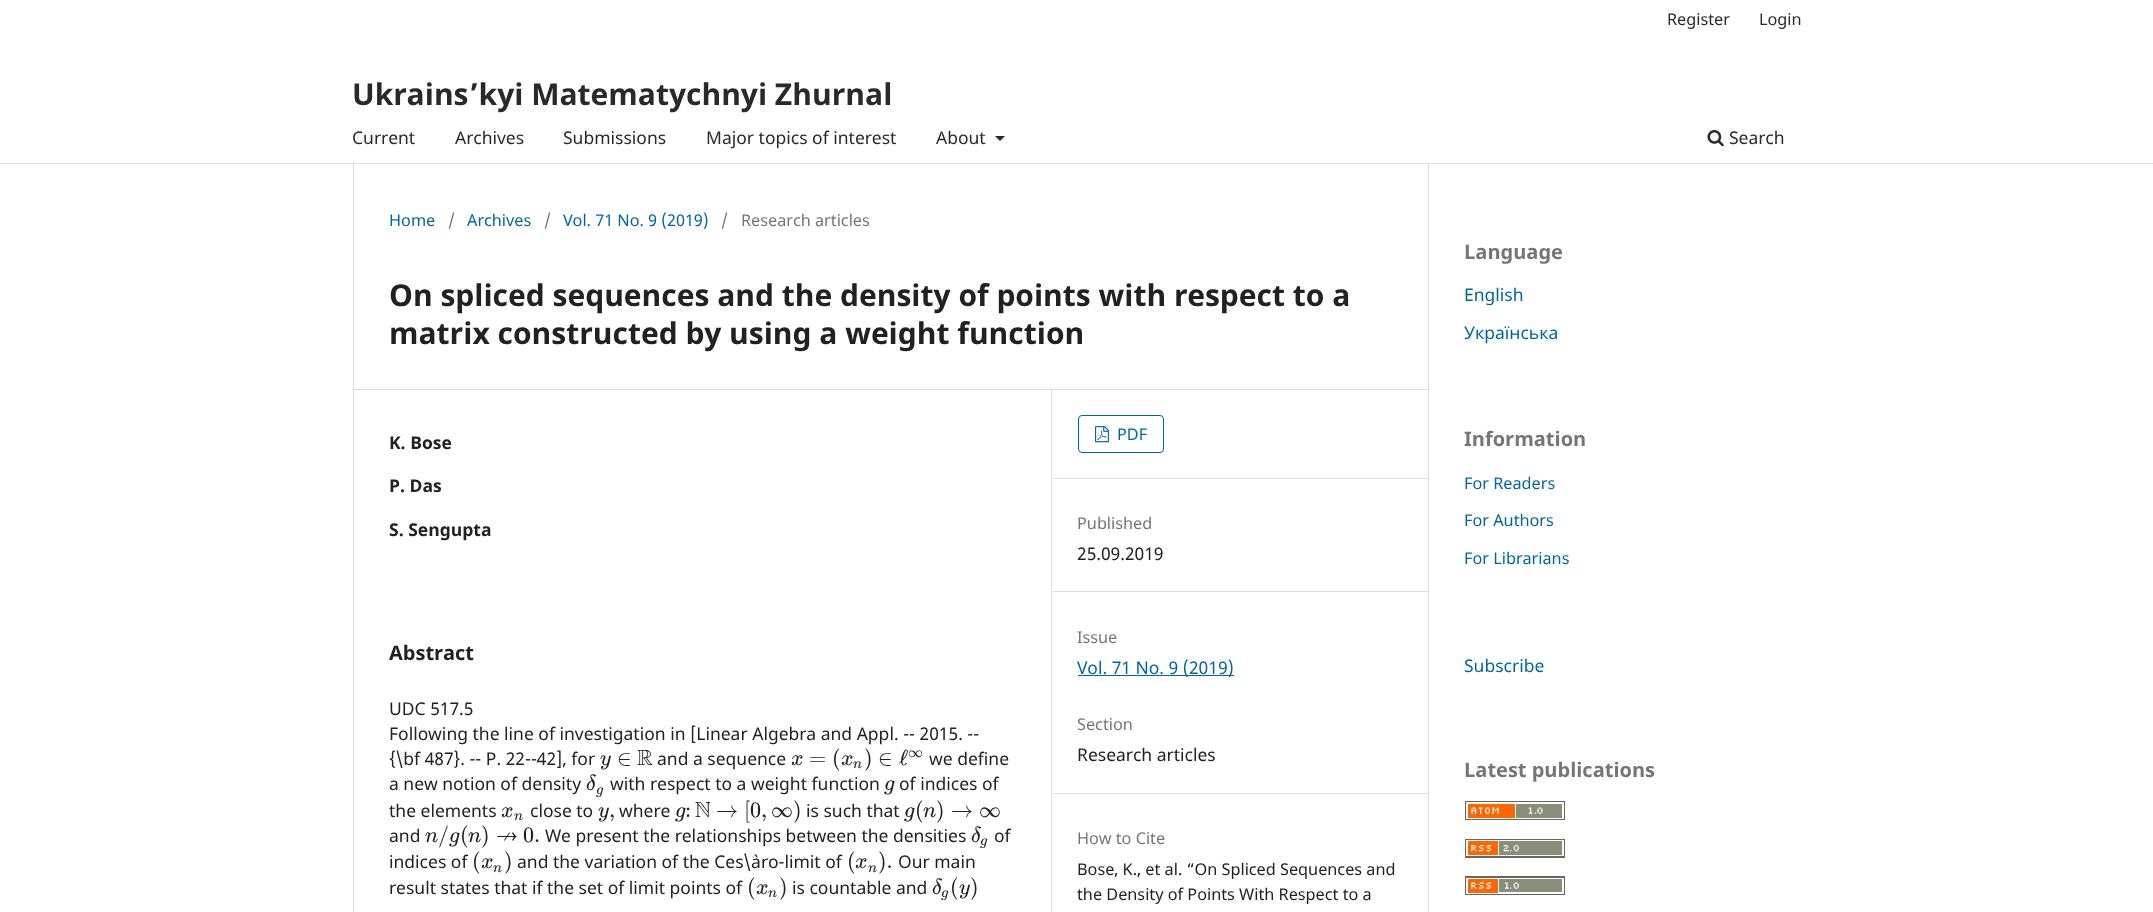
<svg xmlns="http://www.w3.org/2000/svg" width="2153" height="912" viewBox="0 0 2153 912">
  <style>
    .t1 { font: 16.25px Noto Sans; fill: #292929; }
    .t2 { font: 17.5px Noto Sans; fill: #292929; }
    .t3 { font: bold 30px Noto Sans; fill: #292929; }
    .t4 { font: 16.25px Noto Sans; fill: #006798; }
    .t5 { font: 16.25px Noto Sans; fill: #757575; }
    .t6 { font: bold 30px Noto Sans; fill: #212121; }
    .t7 { font: bold 17.5px Noto Sans; fill: #212121; }
    .t8 { font: bold 20px Noto Sans; fill: #212121; }
    .t9 { font: 17.5px Noto Sans; fill: #212121; }
    .t10 { font: italic 22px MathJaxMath; fill: #212121; }
    .t11 { font: 22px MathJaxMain; fill: #212121; }
    .t12 { font: 22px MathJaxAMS; fill: #212121; }
    .t13 { font: italic 15px MathJaxMath; fill: #212121; }
    .t14 { font: 15px MathJaxMain; fill: #212121; }
    .t15 { font: 17.5px Noto Sans; fill: #006798; }
    .t16 { font: 16.25px Noto Sans; fill: #212121; }
    .t17 { font: bold 20px Noto Sans; fill: #757575; }
  </style>
  <rect width="100%" height="100%" fill="#fff"/>
  <rect x="0" y="163" width="2153" height="1" fill="#ddd"/>
  <text x="1667" y="25" class="t1">Register</text>
  <text x="1759" y="25" class="t1">Login</text>
  <text x="352" y="144" class="t2">Current</text>
  <text x="455" y="144" class="t2">Archives</text>
  <text x="563" y="144" class="t2">Submissions</text>
  <text x="706" y="144" class="t2">Major topics of interest</text>
  <text x="936" y="144" class="t2">About</text>
  <path d="M995 136H1005L1000 141Z" fill="#292929"/>
  <image x="1707" y="130" width="17" height="17" href="images/1.png"/>
  <text x="1729" y="144" class="t2">Search</text>
  <text x="352" y="105" class="t3">Ukrains’kyi Matematychnyi Zhurnal</text>
  <rect x="353" y="389" width="1075" height="1" fill="#ddd"/>
  <rect x="353" y="164" width="1" height="748" fill="#ddd"/>
  <text x="389" y="226" class="t4">Home</text>
  <text x="448" y="226" class="t5">/</text>
  <text x="467" y="226" class="t4">Archives</text>
  <text x="544" y="226" class="t5">/</text>
  <text x="563" y="226" class="t4">Vol. 71 No. 9 (2019)</text>
  <text x="721" y="226" class="t5">/</text>
  <text x="741" y="226" class="t5">Research articles</text>
  <text x="389" y="306" class="t6">On spliced sequences and the density of points with respect to a</text>
  <text x="389" y="344" class="t6">matrix constructed by using a weight function</text>
  <rect x="1051" y="390" width="1" height="522" fill="#ddd"/>
  <text x="389" y="449" class="t7">K. Bose</text>
  <text x="389" y="492" class="t7">P. Das</text>
  <text x="389" y="536" class="t7">S. Sengupta</text>
  <text x="389" y="660" class="t8">Abstract</text>
  <text x="389" y="715" class="t9">UDC 517.5</text>
  <text x="389" y="740" class="t9">Following the line of investigation in [Linear Algebra and Appl. -- 2015. --</text>
  <text x="389" y="765" class="t9">{\bf 487}. -- P. 22--42], for</text>
  <text x="600" y="765" class="t10">y</text>
  <text x="617" y="765" class="t11">∈</text>
  <text x="637" y="765" class="t12">R</text>
  <text x="657" y="765" class="t9">and a sequence</text>
  <text x="791" y="765" class="t10">x</text>
  <text x="809" y="765" class="t11">=</text>
  <text x="832" y="765" class="t11">(</text>
  <text x="841" y="765" class="t10">x</text>
  <text x="853" y="768" class="t13">n</text>
  <text x="864" y="765" class="t11">)</text>
  <text x="878" y="765" class="t11">∈</text>
  <text x="899" y="765" class="t11">ℓ</text>
  <text x="908" y="757" class="t14">∞</text>
  <text x="929" y="765" class="t9">we define</text>
  <text x="389" y="790" class="t9">а new notion of density</text>
  <text x="586" y="790" class="t10">δ</text>
  <text x="596" y="794" class="t13">g</text>
  <text x="610" y="790" class="t9">with respect to a weight function</text>
  <text x="884" y="790" class="t10">g</text>
  <text x="899" y="790" class="t9">of indices of</text>
  <text x="389" y="817" class="t9">the elements</text>
  <text x="501" y="817" class="t10">x</text>
  <text x="514" y="820" class="t13">n</text>
  <text x="530" y="817" class="t9">close to</text>
  <text x="598" y="817" class="t10">y</text>
  <text x="609" y="817" class="t11">,</text>
  <text x="619" y="817" class="t9">where</text>
  <text x="675" y="817" class="t10">g</text>
  <text x="685" y="817" class="t11">:</text>
  <text x="695" y="817" class="t12">N</text>
  <text x="716" y="817" class="t11">→</text>
  <text x="744" y="817" class="t11">[0,</text>
  <text x="771" y="817" class="t11">∞)</text>
  <text x="806" y="817" class="t9">is such that</text>
  <text x="904" y="817" class="t10">g</text>
  <text x="915" y="817" class="t11">(</text>
  <text x="923" y="817" class="t10">n</text>
  <text x="936" y="817" class="t11">)</text>
  <text x="951" y="817" class="t11">→</text>
  <text x="979" y="817" class="t11">∞</text>
  <text x="389" y="842" class="t9">and</text>
  <text x="425" y="842" class="t10">n</text>
  <text x="438" y="842" class="t11">/</text>
  <text x="449" y="842" class="t10">g</text>
  <text x="460" y="842" class="t11">(</text>
  <text x="468" y="842" class="t10">n</text>
  <text x="481" y="842" class="t11">)</text>
  <text x="496" y="842" class="t12">↛</text>
  <text x="523" y="842" class="t11">0.</text>
  <text x="545" y="842" class="t9">We present the relationships between the densities</text>
  <text x="971" y="842" class="t10">δ</text>
  <text x="980" y="845" class="t13">g</text>
  <text x="994" y="842" class="t9">of</text>
  <text x="389" y="868" class="t9">indices of</text>
  <text x="472" y="868" class="t11">(</text>
  <text x="481" y="868" class="t10">x</text>
  <text x="493" y="872" class="t13">n</text>
  <text x="504" y="868" class="t11">)</text>
  <text x="517" y="868" class="t9">and the variation of the Ces\`aro-limit of</text>
  <text x="847" y="868" class="t11">(</text>
  <text x="855" y="868" class="t10">x</text>
  <text x="868" y="872" class="t13">n</text>
  <text x="878" y="868" class="t11">).</text>
  <text x="898" y="868" class="t9">Our main</text>
  <text x="389" y="894" class="t9">result states that if the set of limit points of</text>
  <text x="747" y="894" class="t11">(</text>
  <text x="756" y="894" class="t10">x</text>
  <text x="768" y="897" class="t13">n</text>
  <text x="779" y="894" class="t11">)</text>
  <text x="792" y="894" class="t9">is countable and</text>
  <text x="932" y="894" class="t10">δ</text>
  <text x="941" y="897" class="t13">g</text>
  <text x="950" y="894" class="t11">(</text>
  <text x="959" y="894" class="t10">y</text>
  <text x="970" y="894" class="t11">)</text>
  <rect x="1053" y="478" width="375" height="1" fill="#ddd"/>
  <rect x="1078.5" y="415.5" width="85" height="37" rx="3.5" fill="none" stroke="#006798"/>
  <image x="1095" y="426" width="14" height="17" href="images/2.png"/>
  <text x="1117" y="440" class="t4">PDF</text>
  <rect x="1053" y="591" width="375" height="1" fill="#ddd"/>
  <text x="1077" y="529" class="t5">Published</text>
  <text x="1077" y="560" class="t9">25.09.2019</text>
  <rect x="1053" y="793" width="375" height="1" fill="#ddd"/>
  <text x="1077" y="643" class="t5">Issue</text>
  <rect x="1078" y="675" width="156" height="1" fill="#006798"/>
  <text x="1077" y="674" class="t15">Vol. 71 No. 9 (2019)</text>
  <text x="1077" y="730" class="t5">Section</text>
  <text x="1077" y="761" class="t9">Research articles</text>
  <text x="1077" y="844" class="t5">How to Cite</text>
  <text x="1077" y="875" class="t16">Bose, K., et al. “On Spliced Sequences and</text>
  <text x="1077" y="900" class="t16">the Density of Points With Respect to a</text>
  <rect x="1428" y="164" width="1" height="748" fill="#ddd"/>
  <text x="1464" y="259" class="t17">Language</text>
  <text x="1464" y="301" class="t15">English</text>
  <text x="1464" y="339" class="t15">Українська</text>
  <text x="1464" y="446" class="t17">Information</text>
  <text x="1464" y="489" class="t4">For Readers</text>
  <text x="1464" y="526" class="t4">For Authors</text>
  <text x="1464" y="564" class="t4">For Librarians</text>
  <text x="1464" y="672" class="t15">Subscribe</text>
  <text x="1464" y="777" class="t17">Latest publications</text>
  <image x="1465" y="801" width="100" height="19" href="images/3.png"/>
  <image x="1465" y="839" width="100" height="19" href="images/4.png"/>
  <image x="1465" y="876" width="100" height="19" href="images/5.png"/>
</svg>
